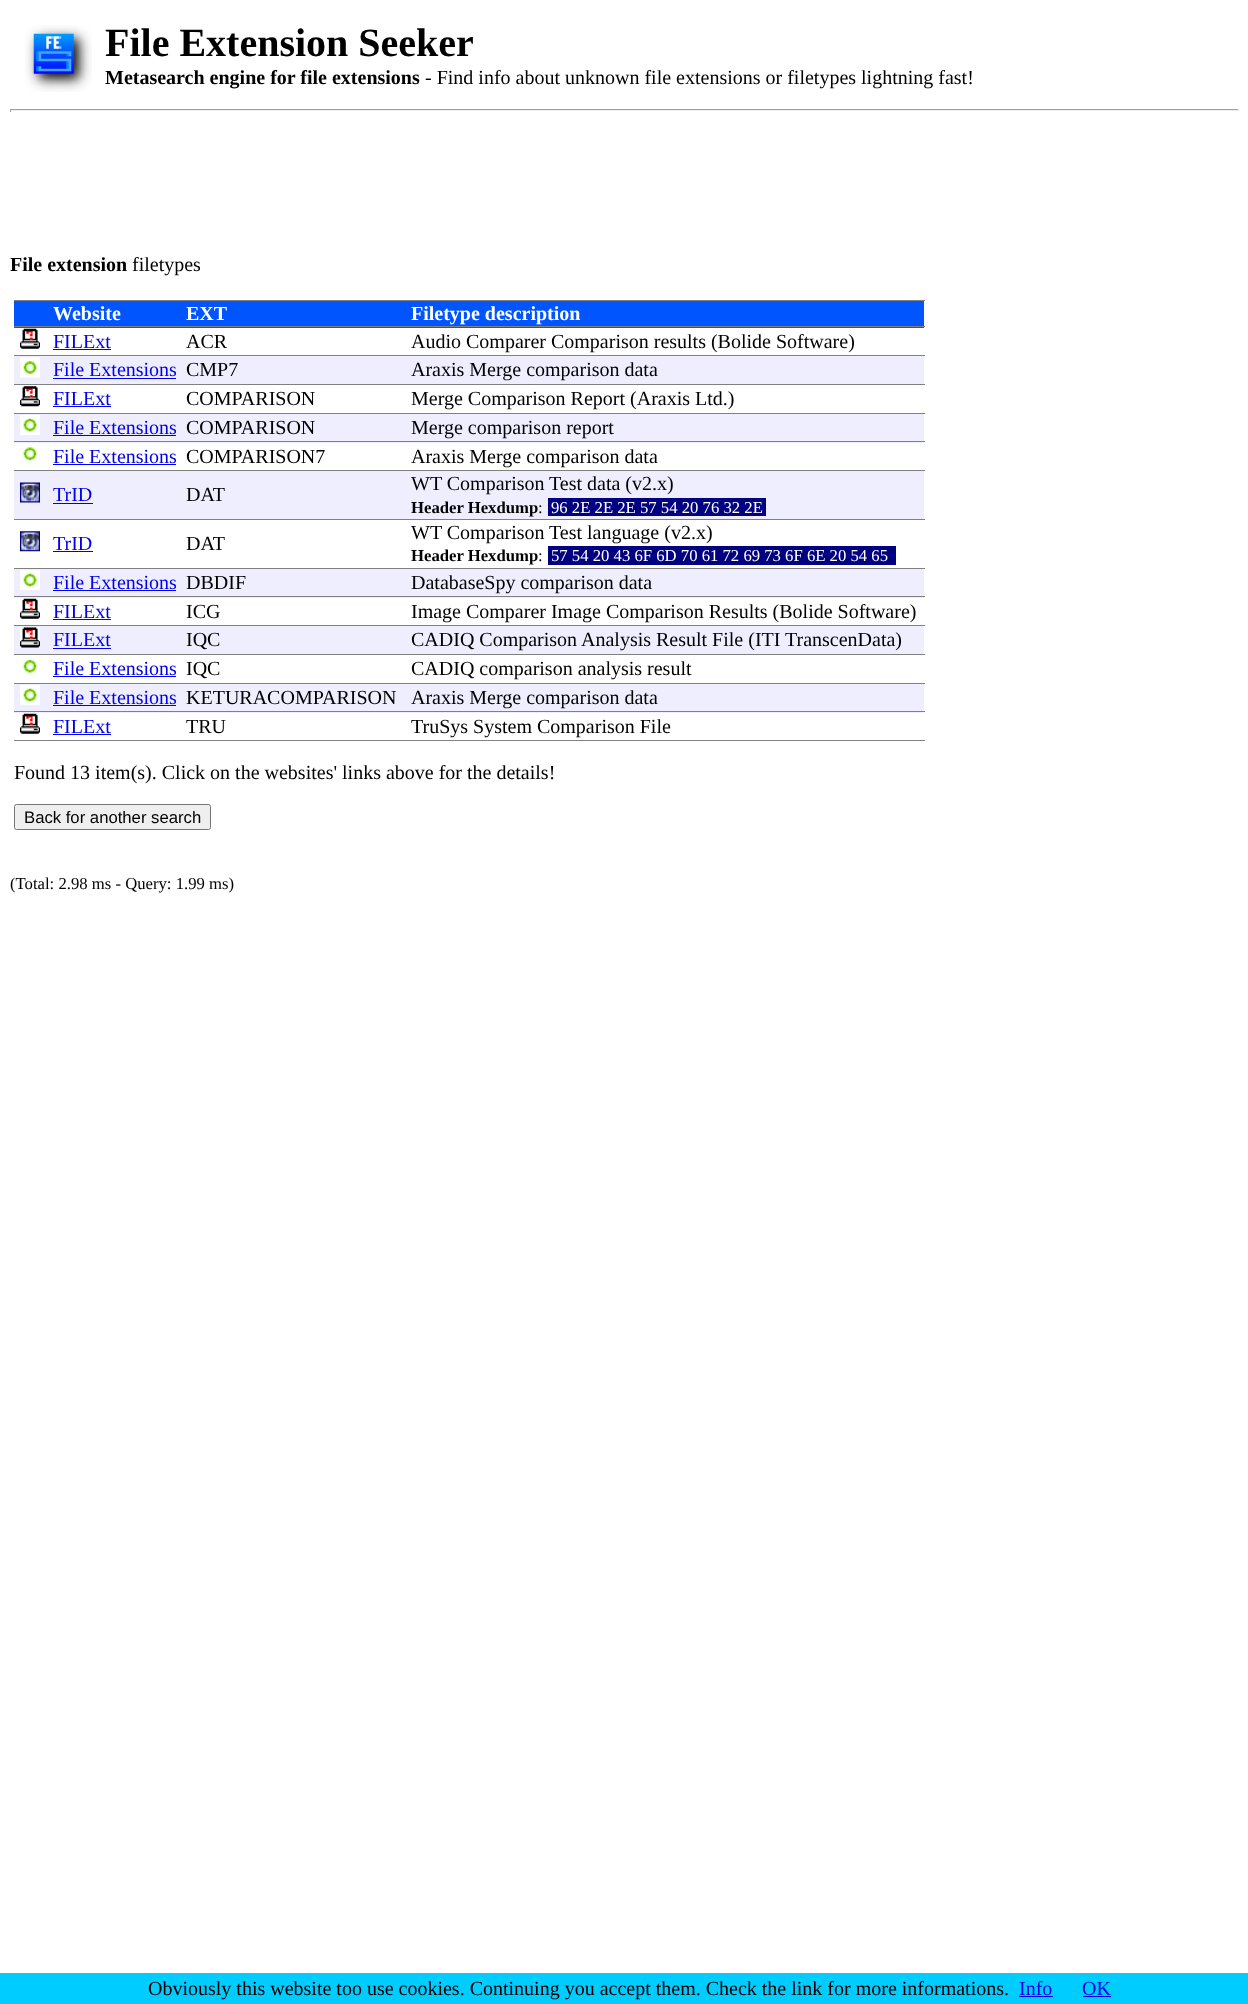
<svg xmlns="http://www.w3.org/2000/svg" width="1248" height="2004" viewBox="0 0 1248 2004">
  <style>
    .t1 { font: bold 40px Liberation Serif; fill: #000; }
    .t2 { font: bold 20px Liberation Serif; fill: #000; }
    .t3 { font: 20px Liberation Serif; fill: #000; }
    .t4 { font: bold 20px Liberation Serif; fill: #fff; }
    .t5 { font: 20px Liberation Serif; fill: #00e; }
    .t6 { font: bold 16.7px Liberation Serif; fill: #000; }
    .t7 { font: 16.7px Liberation Serif; fill: #000; }
    .t8 { font: 16.7px Liberation Serif; fill: #fff; }
    .t9 { font: 16.7px Liberation Sans; fill: #000; }
  </style>
  <rect width="100%" height="100%" fill="#fff"/>
  <image x="25" y="25" width="67" height="67" href="images/1.png"/>
  <text x="105" y="56" class="t1">File Extension Seeker</text>
  <text x="105" y="84" class="t2">Metasearch engine for file extensions</text>
  <text x="425" y="84" class="t3">- Find info about unknown file extensions or filetypes lightning fast!</text>
  <rect x="10" y="109" width="1229" height="1" fill="#9f9f9f"/>
  <rect x="1238" y="109" width="1" height="3" fill="#eee"/>
  <rect x="10" y="110" width="1229" height="1" fill="#eee"/>
  <rect x="10" y="109" width="1" height="3" fill="#9f9f9f"/>
  <text x="10" y="271" class="t2">File extension</text>
  <text x="132" y="271" class="t3">filetypes</text>
  <rect x="14" y="300" width="911" height="1" fill="#808080"/>
  <rect x="14" y="740" width="911" height="1" fill="#808080"/>
  <rect x="14" y="301" width="910" height="27" fill="#05f"/>
  <text x="53" y="320" class="t4">Website</text>
  <text x="186" y="320" class="t4">EXT</text>
  <text x="411" y="320" class="t4">Filetype description</text>
  <image x="20" y="328" width="20" height="21" href="images/2.png"/>
  <text x="53" y="348" class="t5">FILExt</text>
  <rect x="53" y="349" width="58" height="1" fill="#00e"/>
  <text x="186" y="348" class="t3">ACR</text>
  <rect x="14" y="326" width="911" height="1" fill="#808080"/>
  <text x="411" y="348" class="t3">Audio Comparer Comparison results (Bolide Software)</text>
  <rect x="14" y="356" width="910" height="28" fill="#eef"/>
  <image x="20" y="357" width="20" height="21" href="images/3.png"/>
  <text x="53" y="376" class="t5">File Extensions</text>
  <rect x="53" y="378" width="123" height="1" fill="#00e"/>
  <text x="186" y="376" class="t3">CMP7</text>
  <rect x="14" y="355" width="911" height="1" fill="#808080"/>
  <text x="411" y="376" class="t3">Araxis Merge comparison data</text>
  <image x="20" y="386" width="20" height="21" href="images/4.png"/>
  <text x="53" y="405" class="t5">FILExt</text>
  <rect x="53" y="406" width="58" height="1" fill="#00e"/>
  <text x="186" y="405" class="t3">COMPARISON</text>
  <rect x="14" y="384" width="911" height="1" fill="#808080"/>
  <text x="411" y="405" class="t3">Merge Comparison Report (Araxis Ltd.)</text>
  <rect x="14" y="414" width="910" height="29" fill="#eef"/>
  <image x="20" y="415" width="20" height="20" href="images/5.png"/>
  <text x="53" y="434" class="t5">File Extensions</text>
  <rect x="53" y="435" width="123" height="1" fill="#00e"/>
  <text x="186" y="434" class="t3">COMPARISON</text>
  <rect x="14" y="413" width="911" height="1" fill="#808080"/>
  <text x="411" y="434" class="t3">Merge comparison report</text>
  <image x="23" y="447" width="14" height="14" href="images/6.png"/>
  <text x="53" y="463" class="t5">File Extensions</text>
  <rect x="53" y="464" width="123" height="1" fill="#00e"/>
  <text x="186" y="463" class="t3">COMPARISON7</text>
  <rect x="14" y="441" width="911" height="1" fill="#808080"/>
  <text x="411" y="463" class="t3">Araxis Merge comparison data</text>
  <rect x="14" y="471" width="910" height="48" fill="#eef"/>
  <image x="20" y="482" width="20" height="21" href="images/7.png"/>
  <text x="53" y="501" class="t5">TrID</text>
  <rect x="53" y="503" width="40" height="1" fill="#00e"/>
  <text x="186" y="501" class="t3">DAT</text>
  <rect x="14" y="470" width="911" height="1" fill="#808080"/>
  <text x="411" y="490" class="t3">WT Comparison</text>
  <text x="549" y="490" class="t3">Test data (v2.x)</text>
  <text x="411" y="513" class="t6">Header Hexdump</text>
  <text x="538" y="513" class="t7">:</text>
  <rect x="548" y="498" width="218" height="18" fill="#000080"/>
  <text x="551" y="513" class="t8">96 2E 2E 2E 57 54 20 76 32 2E</text>
  <image x="20" y="531" width="20" height="21" href="images/8.png"/>
  <text x="53" y="550" class="t5">TrID</text>
  <rect x="53" y="551" width="40" height="1" fill="#00e"/>
  <text x="186" y="550" class="t3">DAT</text>
  <rect x="14" y="519" width="911" height="1" fill="#808080"/>
  <text x="411" y="539" class="t3">WT Comparison</text>
  <text x="549" y="539" class="t3">Test language (v2.x)</text>
  <text x="411" y="561" class="t6">Header Hexdump</text>
  <text x="538" y="561" class="t7">:</text>
  <rect x="548" y="546" width="348" height="19" fill="#000080"/>
  <text x="551" y="561" class="t8">57 54 20 43 6F 6D 70 61 72 69 73 6F 6E 20 54 65</text>
  <rect x="14" y="569" width="910" height="29" fill="#eef"/>
  <image x="20" y="570" width="20" height="20" href="images/5.png"/>
  <text x="53" y="589" class="t5">File Extensions</text>
  <rect x="53" y="590" width="123" height="1" fill="#00e"/>
  <text x="186" y="589" class="t3">DBDIF</text>
  <rect x="14" y="568" width="911" height="1" fill="#808080"/>
  <text x="411" y="589" class="t3">DatabaseSpy comparison data</text>
  <image x="20" y="598" width="20" height="21" href="images/2.png"/>
  <text x="53" y="618" class="t5">FILExt</text>
  <rect x="53" y="619" width="58" height="1" fill="#00e"/>
  <text x="186" y="618" class="t3">ICG</text>
  <rect x="14" y="596" width="911" height="1" fill="#808080"/>
  <text x="411" y="618" class="t3">Image Comparer Image Comparison Results (Bolide Software)</text>
  <rect x="14" y="626" width="910" height="28" fill="#eef"/>
  <image x="20" y="627" width="20" height="21" href="images/9.png"/>
  <text x="53" y="646" class="t5">FILExt</text>
  <rect x="53" y="648" width="58" height="1" fill="#00e"/>
  <text x="186" y="646" class="t3">IQC</text>
  <rect x="14" y="625" width="911" height="1" fill="#808080"/>
  <text x="411" y="646" class="t3">CADIQ Comparison</text>
  <text x="581" y="646" class="t3">Analysis Result File (ITI</text>
  <text x="785" y="646" class="t3">TranscenData)</text>
  <image x="23" y="659" width="14" height="14" href="images/10.png"/>
  <text x="53" y="675" class="t5">File Extensions</text>
  <rect x="53" y="676" width="123" height="1" fill="#00e"/>
  <text x="186" y="675" class="t3">IQC</text>
  <rect x="14" y="654" width="911" height="1" fill="#808080"/>
  <text x="411" y="675" class="t3">CADIQ comparison analysis result</text>
  <rect x="14" y="684" width="910" height="29" fill="#eef"/>
  <image x="20" y="685" width="20" height="20" href="images/5.png"/>
  <text x="53" y="704" class="t5">File Extensions</text>
  <rect x="53" y="705" width="123" height="1" fill="#00e"/>
  <text x="186" y="704" class="t3">KETURACOMPARISON</text>
  <rect x="14" y="683" width="911" height="1" fill="#808080"/>
  <text x="411" y="704" class="t3">Araxis Merge comparison data</text>
  <image x="20" y="713" width="20" height="21" href="images/2.png"/>
  <text x="53" y="733" class="t5">FILExt</text>
  <rect x="53" y="734" width="58" height="1" fill="#00e"/>
  <text x="186" y="733" class="t3">TRU</text>
  <rect x="14" y="711" width="911" height="1" fill="#808080"/>
  <text x="411" y="733" class="t3">TruSys System Comparison File</text>
  <text x="14" y="779" class="t3">Found 13 item(s). Click on the websites' links above for the details!</text>
  <rect x="14.5" y="804.5" width="196" height="25" rx="2" fill="#efefef" stroke="#767676"/>
  <text x="24" y="823" class="t9">Back for another search</text>
  <text x="10" y="889" class="t7">(Total: 2.98 ms - Query: 1.99 ms)</text>
  <rect x="0" y="1973" width="1248" height="31" fill="#0cf"/>
  <text x="148" y="1995" class="t3">Obviously this website too use cookies. Continuing you accept them. Check the link for more informations.</text>
  <text x="1019" y="1995" class="t5">Info</text>
  <rect x="1019" y="1996" width="34" height="1" fill="#00e"/>
  <text x="1082" y="1995" class="t5">OK</text>
  <rect x="1083" y="1996" width="28" height="1" fill="#00e"/>
</svg>
